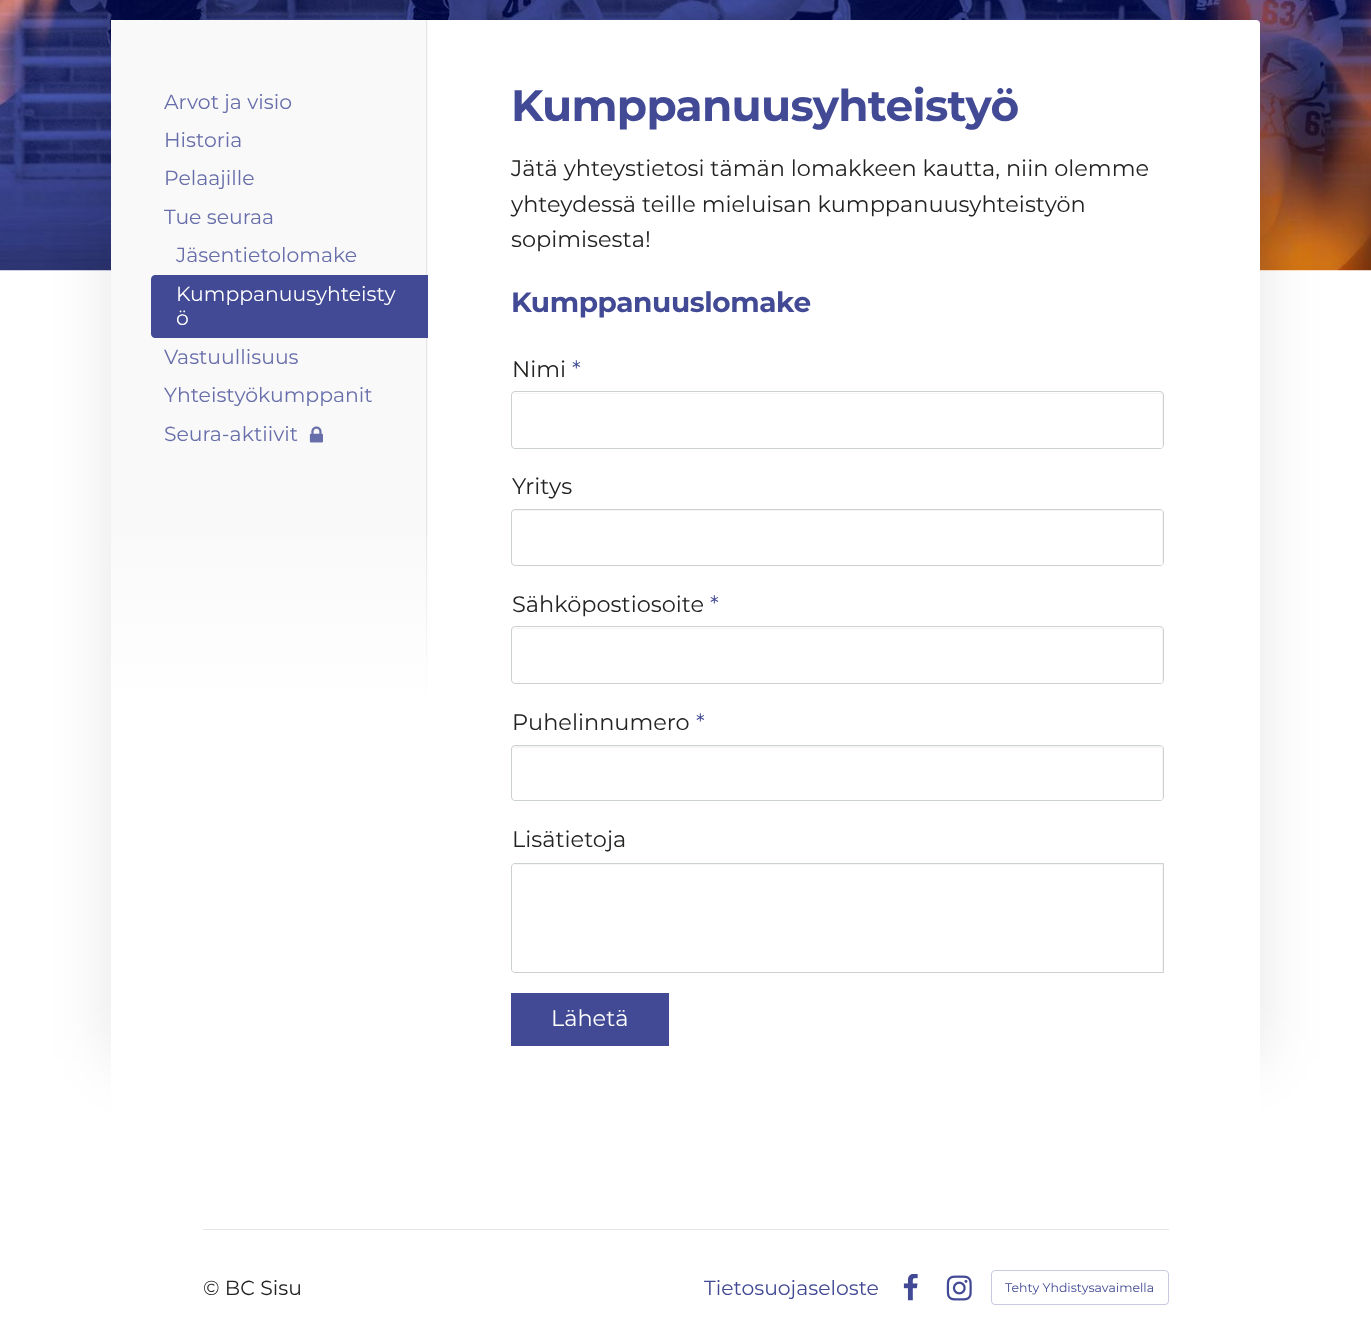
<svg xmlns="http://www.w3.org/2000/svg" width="1371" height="1343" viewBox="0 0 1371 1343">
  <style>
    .t1 { font: 100 20.4px Montserrat; fill: #686eaa; }
    .t2 { font: 100 20.4px Montserrat; fill: #fff; }
    .t3 { font: 100 43.9px 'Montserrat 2'; letter-spacing: -0.7px; fill: #424a95; }
    .t4 { font: 100 22.45px Montserrat; fill: #232422; }
    .t5 { font: 100 28px 'Montserrat 2'; letter-spacing: -0.4px; fill: #424a95; }
    .t6 { font: 100 22.45px Montserrat; fill: #424a95; }
    .t7 { font: 100 22.45px Montserrat; fill: #fff; }
    .t8 { font: 100 20.4px Montserrat; fill: #232422; }
    .t9 { font: 100 20.4px Montserrat; fill: #424a95; }
    .t10 { font: 100 12.5px Montserrat; fill: #424a95; }
  </style>
  <defs>
    <linearGradient id="g1" gradientUnits="userSpaceOnUse" x1="269" y1="519" x2="269" y2="706"><stop offset="0" stop-color="#fff" stop-opacity="0"/><stop offset="1" stop-color="#fff"/></linearGradient>
  </defs>
  <rect width="100%" height="100%" fill="#fff"/>
  <image x="0" y="0" width="1371" height="271" href="images/1.png"/>
  <rect x="111" y="-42" width="1149" height="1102" rx="4" fill="#0000001a" filter="blur(31px)"/>
  <rect x="111" y="20" width="1149" height="1103" rx="4" fill="#fff"/>
  <rect x="111" y="20" width="317" height="685" fill="#f9f9f9"/>
  <rect x="426" y="20" width="1" height="686" fill="#e6e6e6"/>
  <text x="164" y="109" class="t1">Arvot ja visio</text>
  <text x="164" y="147" class="t1">Historia</text>
  <text x="164" y="185" class="t1">Pelaajille</text>
  <text x="164" y="224" class="t1">Tue seuraa</text>
  <text x="176" y="262" class="t1">Jäsentietolomake</text>
  <path d="M155 275H428V338H155C153 338 151 336 151 334V279C151 277 153 275 155 275Z" fill="#424a95"/>
  <text x="176" y="301" class="t2">Kumppanuusyhteisty</text>
  <text x="176" y="325" class="t2">ö</text>
  <text x="164" y="364" class="t1">Vastuullisuus</text>
  <text x="164" y="402" class="t1">Yhteistyökumppanit</text>
  <text x="164" y="441" class="t1">Seura-aktiivit</text>
  <image x="309" y="426" width="14" height="17" href="images/2.png"/>
  <rect x="111" y="538" width="317" height="168" fill="url(#g1)"/>
  <text x="511" y="121" class="t3">Kumppanuusyhteistyö</text>
  <text x="511" y="176" class="t4">Jätä yhteystietosi tämän lomakkeen kautta, niin olemme</text>
  <text x="511" y="212" class="t4">yhteydessä teille mieluisan kumppanuusyhteistyön</text>
  <text x="511" y="247" class="t4">sopimisesta!</text>
  <text x="511" y="312" class="t5">Kumppanuuslomake</text>
  <text x="512" y="377" class="t4">Nimi</text>
  <text x="572" y="377" class="t6">*</text>
  <rect x="511.5" y="391.5" width="652" height="57" rx="3.5" fill="none" stroke="#cbd0d0"/>
  <rect x="513" y="393" width="650" height="55" rx="2.5" fill="#fff"/>
  <path d="M515 394H1160C1161 394 1162 395 1162 396V448L1163 446V396C1163 394 1162 393 1160 393H515L513 395Z" fill="#3f3f440d"/>
  <text x="512" y="494" class="t4">Yritys</text>
  <rect x="511.5" y="509.5" width="652" height="56" rx="3.5" fill="none" stroke="#cbd0d0"/>
  <rect x="513" y="510" width="650" height="55" rx="2.5" fill="#fff"/>
  <path d="M515 511H1160C1161 511 1162 512 1162 514V565C1163 564 1163 563 1163 562V512C1163 511 1162 510 1160 510H516C514 510 513 511 513 512Z" fill="#3f3f440d"/>
  <text x="512" y="612" class="t4">Sähköpostiosoite</text>
  <text x="710" y="612" class="t6">*</text>
  <rect x="511.5" y="626.5" width="652" height="57" rx="3.5" fill="none" stroke="#cbd0d0"/>
  <rect x="513" y="628" width="650" height="55" rx="2.5" fill="#fff"/>
  <path d="M515 629H1160C1161 629 1162 630 1162 631V683L1163 681V630C1163 629 1162 628 1160 628H515L513 630Z" fill="#3f3f440d"/>
  <text x="512" y="730" class="t4">Puhelinnumero</text>
  <text x="696" y="730" class="t6">*</text>
  <rect x="511.5" y="745.5" width="652" height="55" rx="3.5" fill="none" stroke="#cbd0d0"/>
  <rect x="513" y="746" width="650" height="54" rx="2.5" fill="#fff"/>
  <path d="M515 748H1160C1161 748 1162 749 1162 750V800C1163 799 1163 798 1163 798V748C1163 747 1162 746 1160 746H516C514 746 513 747 513 748Z" fill="#3f3f440d"/>
  <text x="512" y="847" class="t4">Lisätietoja</text>
  <path d="M515 863.5H1163.5V972.5H515C513 972.5 511.5 971 511.5 969V867C511.5 865 513 863.5 515 863.5Z" fill="none" stroke="#cbd0d0"/>
  <path d="M515.5 864H1163V971H515.5C514 971 513 970 513 968.5V866.5C513 865 514 864 515.5 864Z" fill="#fff"/>
  <path d="M515 865H1162V971H1163V864H516C514 864 513 865 513 866Z" fill="#f5f5f6"/>
  <rect x="511" y="993" width="158" height="53" fill="#424a95"/>
  <text x="551" y="1026" class="t7">Lähetä</text>
  <rect x="203" y="1229" width="966" height="1" fill="#e6e6e6"/>
  <text x="203" y="1295" class="t8">© BC Sisu</text>
  <text x="704" y="1295" class="t9">Tietosuojaseloste</text>
  <image x="903" y="1274" width="15" height="27" href="images/3.png"/>
  <image x="946" y="1275" width="26" height="26" href="images/4.png"/>
  <rect x="991.5" y="1270.5" width="177" height="34" rx="3.5" fill="none" stroke="#c6c9df"/>
  <text x="1005" y="1292" class="t10">Tehty Yhdistysavaimella</text>
</svg>
